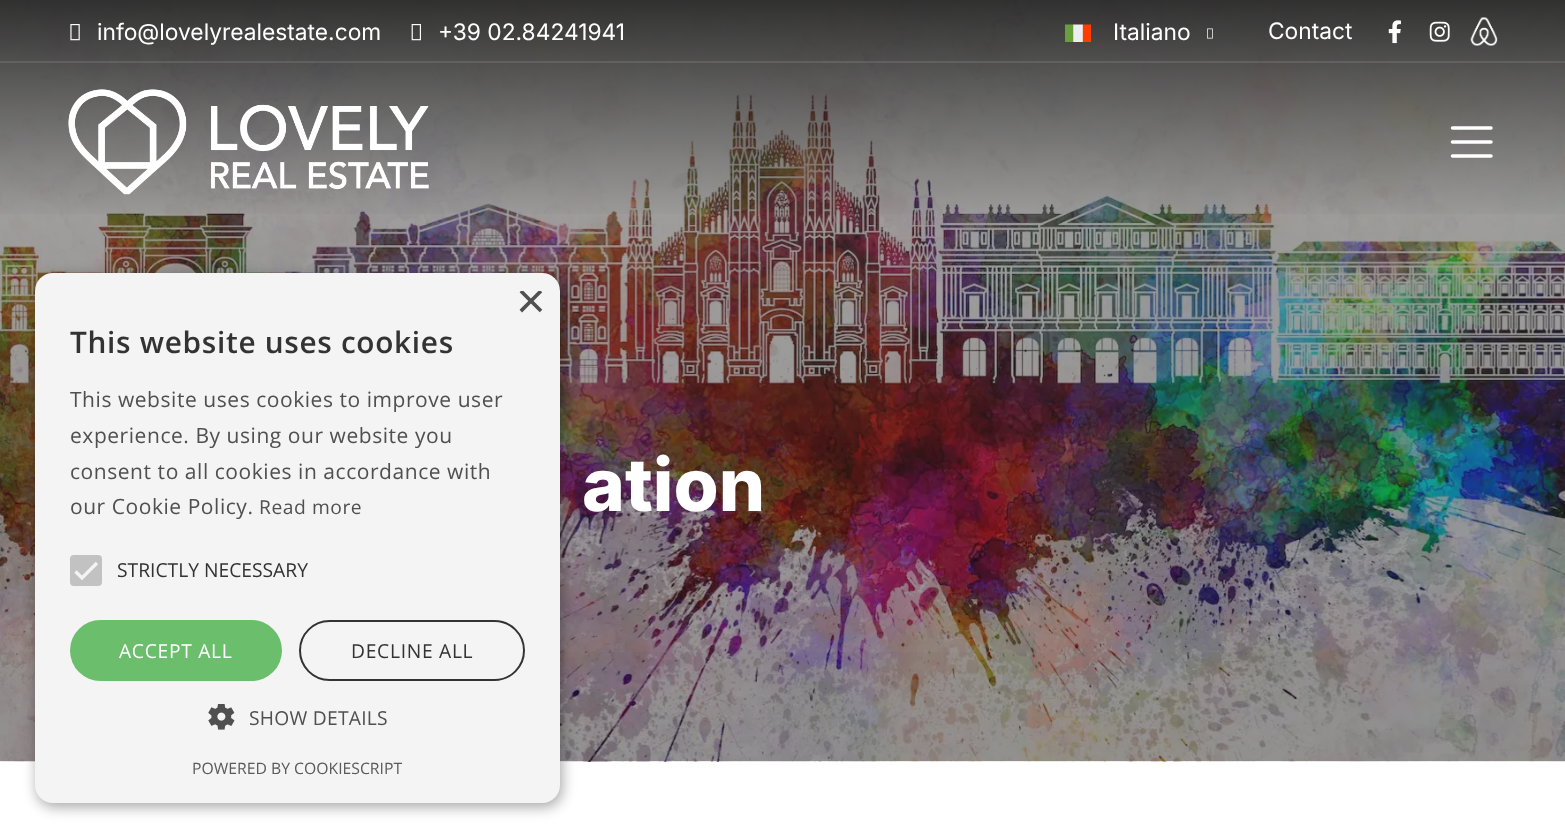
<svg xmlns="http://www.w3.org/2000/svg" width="1565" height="837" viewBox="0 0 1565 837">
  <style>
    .t1 { font: 22.75px Inter; fill: #fff; }
    .t2 { font: 51px Liberation Sans; fill: #505050; }
    .t3 { font: 600 29.75px Open Sans; letter-spacing: 0.7px; fill: #333; }
    .t4 { font: 21px Open Sans; letter-spacing: 0.55px; fill: #505050; }
    .t5 { font: 19.25px Open Sans; letter-spacing: 0.55px; fill: #505050; }
    .t6 { font: 19.25px Open Sans; fill: #333; }
    .t7 { font: 19.25px Open Sans; letter-spacing: 0.7px; fill: #fff; }
    .t8 { font: 19.25px Open Sans; letter-spacing: 0.7px; fill: #333; }
    .t9 { font: 19.25px Open Sans; letter-spacing: 0.25px; fill: #505050; }
    .t10 { font: 15.75px Open Sans; fill: #5a5a5a; }
    .t11 { font: 800 73px Inter; fill: #fff; }
  </style>
  <defs>
    <linearGradient id="g1" gradientUnits="userSpaceOnUse" x1="783" y1="0" x2="783" y2="761"><stop offset="0" stop-color="#fff" stop-opacity="0.15"/><stop offset="1" stop-color="#fff" stop-opacity="0"/></linearGradient>
    <linearGradient id="g2" gradientUnits="userSpaceOnUse" x1="783" y1="0" x2="783" y2="221"><stop offset="0" stop-color="#000" stop-opacity="0.7"/><stop offset="1" stop-color="#000" stop-opacity="0"/></linearGradient>
    <clipPath id="clip1"><rect x="516" y="291" width="27" height="26"/></clipPath>
  </defs>
  <rect width="100%" height="100%" fill="#fff"/>
  <image x="0" y="0" width="1565" height="762" href="images/10.png"/>
  <rect x="0" y="0" width="1565" height="652" fill="url(#g1)"/>
  <rect x="0" y="0" width="1565" height="214" fill="url(#g2)"/>
  <image x="70" y="24" width="10" height="17" href="images/1.png"/>
  <text x="97" y="40" class="t1">info@lovelyrealestate.com</text>
  <image x="411" y="24" width="10" height="17" href="images/2.png"/>
  <text x="438" y="40" class="t1">+39 02.84241941</text>
  <image x="1065" y="24" width="26" height="18" href="images/3.png"/>
  <text x="1113" y="40" class="t1">Italiano</text>
  <image x="1207" y="28" width="6" height="11" href="images/4.png"/>
  <text x="1268" y="39" class="t1">Contact</text>
  <image x="1388" y="20" width="13" height="24" href="images/5.png"/>
  <image x="1429" y="21" width="21" height="21" href="images/6.png"/>
  <image x="1470" y="17" width="28" height="29" href="images/7.png"/>
  <rect x="0" y="61" width="1565" height="2" fill="#ffffff1a"/>
  <image x="68" y="89" width="361" height="106" href="images/8.png"/>
  <path d="M1452.5 128H1491M1452.5 142H1491M1452.5 156H1491" fill="none" stroke="#fff" stroke-width="3.5" stroke-linecap="round"/>
  <rect x="37" y="277" width="525" height="530" rx="18" fill="#00000059" filter="blur(7px)"/>
  <rect x="35" y="273" width="525" height="530" rx="18" fill="#f4f4f4"/>
  <g clip-path="url(#clip1)">
    <text x="516" y="318" class="t2">×</text>
  </g>
  <text x="70" y="353" class="t3">This website uses cookies</text>
  <text x="70" y="407" class="t4">This website uses cookies to improve user</text>
  <text x="70" y="443" class="t4">experience. By using our website you</text>
  <text x="70" y="479" class="t4">consent to all cookies in accordance with</text>
  <text x="70" y="514" class="t4">our Cookie Policy.</text>
  <text x="259" y="514" class="t5">Read more</text>
  <rect x="70" y="555" width="32" height="31" rx="4" fill="#c2c2c2"/>
  <path d="M75.5 571.5L82 578L97 563" fill="none" stroke="#f4f4f4" stroke-width="3.2"/>
  <text x="117" y="577" class="t6">STRICTLY NECESSARY</text>
  <rect x="70" y="620" width="212" height="61" rx="30.5" fill="#6bbe6b"/>
  <text x="119" y="658" class="t7">ACCEPT ALL</text>
  <rect x="300" y="621" width="224" height="59" rx="29.5" fill="none" stroke="#333" stroke-width="2"/>
  <text x="351" y="658" class="t8">DECLINE ALL</text>
  <image x="208" y="704" width="27" height="26" href="images/9.png"/>
  <text x="249" y="725" class="t9">SHOW DETAILS</text>
  <text x="192" y="774" class="t10">POWERED BY COOKIESCRIPT</text>
  <text x="582" y="511" class="t11">ation</text>
</svg>
